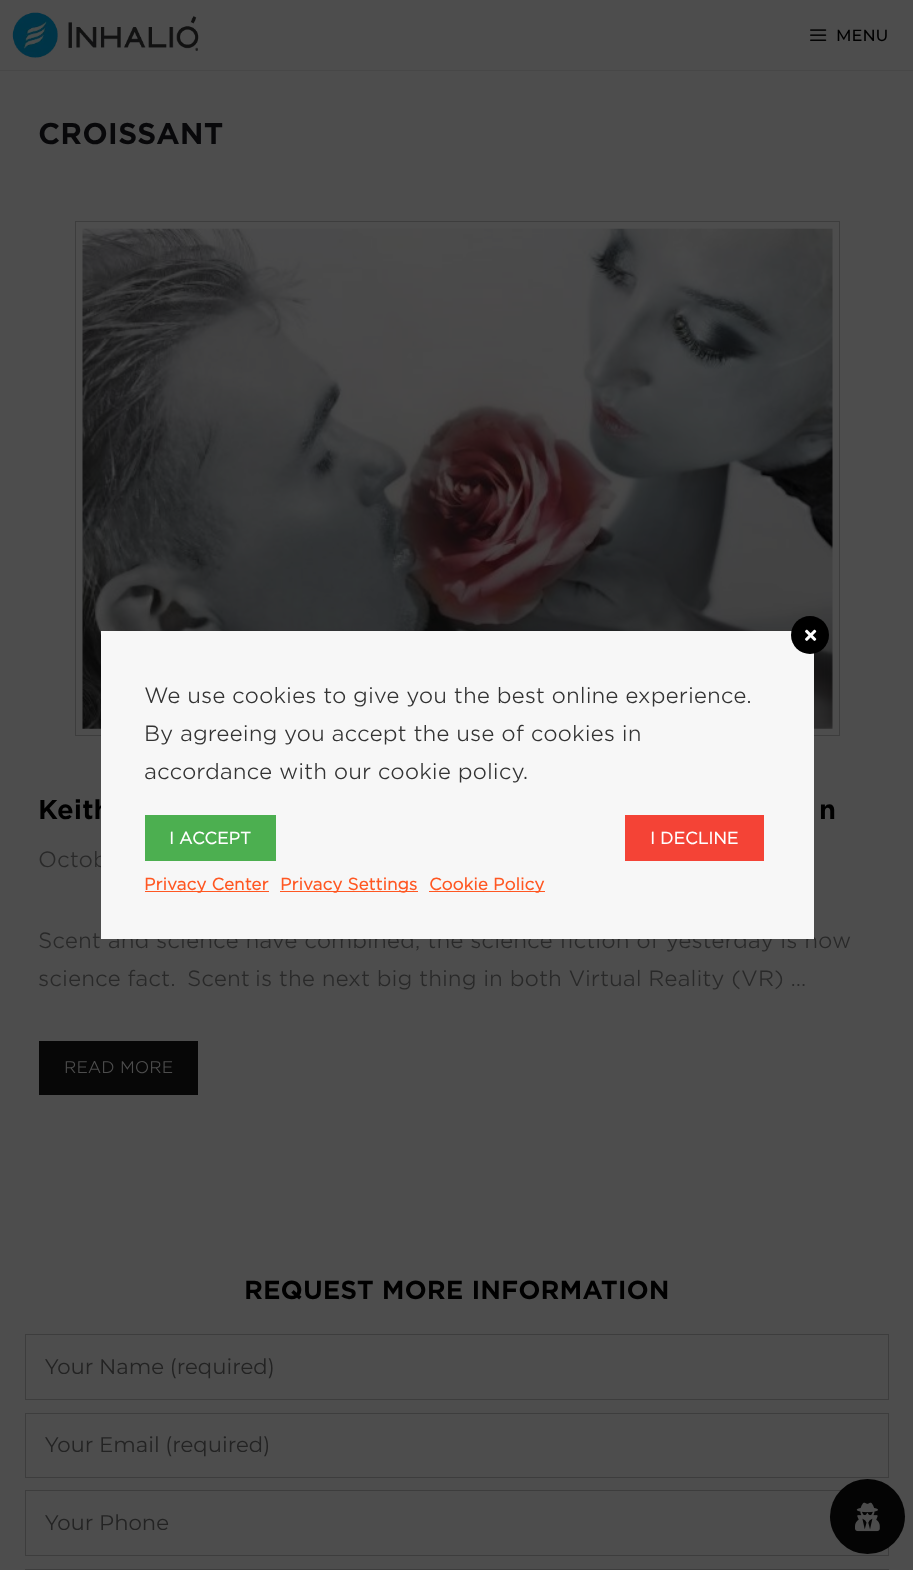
<svg xmlns="http://www.w3.org/2000/svg" width="913" height="1570" viewBox="0 0 913 1570">
  <style>
    .t1 { font: 500 16.25px Montserrat; fill: #000; }
    .t2 { font: bold 28.75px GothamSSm; fill: #08080a; }
    .t3 { font: bold 26px GothamSSm; fill: #000; }
    .t4 { font: 300 21.25px GothamSSm; fill: #292929; }
    .t5 { font: 300 16.25px GothamSSm; fill: #4d4d4d; }
    .t6 { font: 300 21.25px GothamSSm; fill: #333; }
    .t7 { font: bold 16.25px 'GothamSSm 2'; fill: #fff; }
    .t8 { font: bold 16.25px 'GothamSSm 2'; fill: #ff5722; }
    .t9 { font: bold 25px GothamSSm; fill: #000; }
    .t10 { font: 21.25px Montserrat; fill: #232323; }
  </style>
  <rect width="100%" height="100%" fill="#4d4d4d"/>
  <rect x="0" y="70" width="913" height="1" fill="#474747"/>
  <image x="12" y="12" width="187" height="46" href="images/1.png"/>
  <image x="810" y="29" width="17" height="12" href="images/2.png"/>
  <text x="836" y="41" class="t1">MENU</text>
  <text x="38" y="144" class="t2">CROISSANT</text>
  <rect x="75.5" y="221.5" width="764" height="514" fill="none" stroke="#3d3d3d"/>
  <image x="82" y="228" width="751" height="501" href="images/3.png"/>
  <text x="38" y="819" class="t3">Keith</text>
  <text x="819" y="819" class="t3">n</text>
  <text x="38" y="867" class="t4">Octob</text>
  <text x="38" y="948" class="t4">Scent and science have combined; the science fiction of yesterday is now</text>
  <text x="38" y="986" class="t4">science fact.</text>
  <text x="187" y="986" class="t4">Scent</text>
  <text x="255" y="986" class="t4">is the next big thing in both Virtual Reality (VR) …</text>
  <rect x="39" y="1041" width="159" height="54" fill="#070707"/>
  <text x="64" y="1073" class="t5">READ MORE</text>
  <rect x="101" y="631" width="713" height="308" fill="#f7f7f7"/>
  <circle cx="810" cy="635" r="19" fill="#000"/>
  <image x="805" y="629" width="12" height="12" href="images/4.png"/>
  <text x="144" y="703" class="t6">We use cookies to give you the best online experience.</text>
  <text x="144" y="741" class="t6">By agreeing you accept the use of cookies in</text>
  <text x="144" y="779" class="t6">accordance with our cookie policy.</text>
  <rect x="145" y="815" width="131" height="46" fill="#4caf50"/>
  <text x="169" y="844" class="t7">I ACCEPT</text>
  <rect x="625" y="815" width="139" height="46" fill="#f44336"/>
  <text x="650" y="844" class="t7">I DECLINE</text>
  <rect x="145" y="891" width="124" height="1" fill="#ff5722"/>
  <text x="144" y="890" class="t8">Privacy Center</text>
  <rect x="280" y="891" width="138" height="1" fill="#ff5722"/>
  <text x="280" y="890" class="t8">Privacy Settings</text>
  <rect x="429" y="891" width="116" height="1" fill="#ff5722"/>
  <text x="429" y="890" class="t8">Cookie Policy</text>
  <text x="244" y="1299" class="t9">REQUEST MORE INFORMATION</text>
  <rect x="25.5" y="1334.5" width="863" height="65" fill="none" stroke="#3d3d3d"/>
  <text x="45" y="1374" class="t10">Your Name (required)</text>
  <rect x="25.5" y="1413.5" width="863" height="64" fill="none" stroke="#3d3d3d"/>
  <text x="45" y="1452" class="t10">Your Email (required)</text>
  <rect x="25.5" y="1490.5" width="863" height="65" fill="none" stroke="#3d3d3d"/>
  <text x="45" y="1530" class="t10">Your Phone</text>
  <rect x="25.5" y="1569.5" width="863" height="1" fill="none" stroke="#3d3d3d"/>
  <circle cx="867.5" cy="1516.5" r="37.5" fill="#040404"/>
  <image x="855" y="1502" width="25" height="30" href="images/5.png"/>
</svg>
